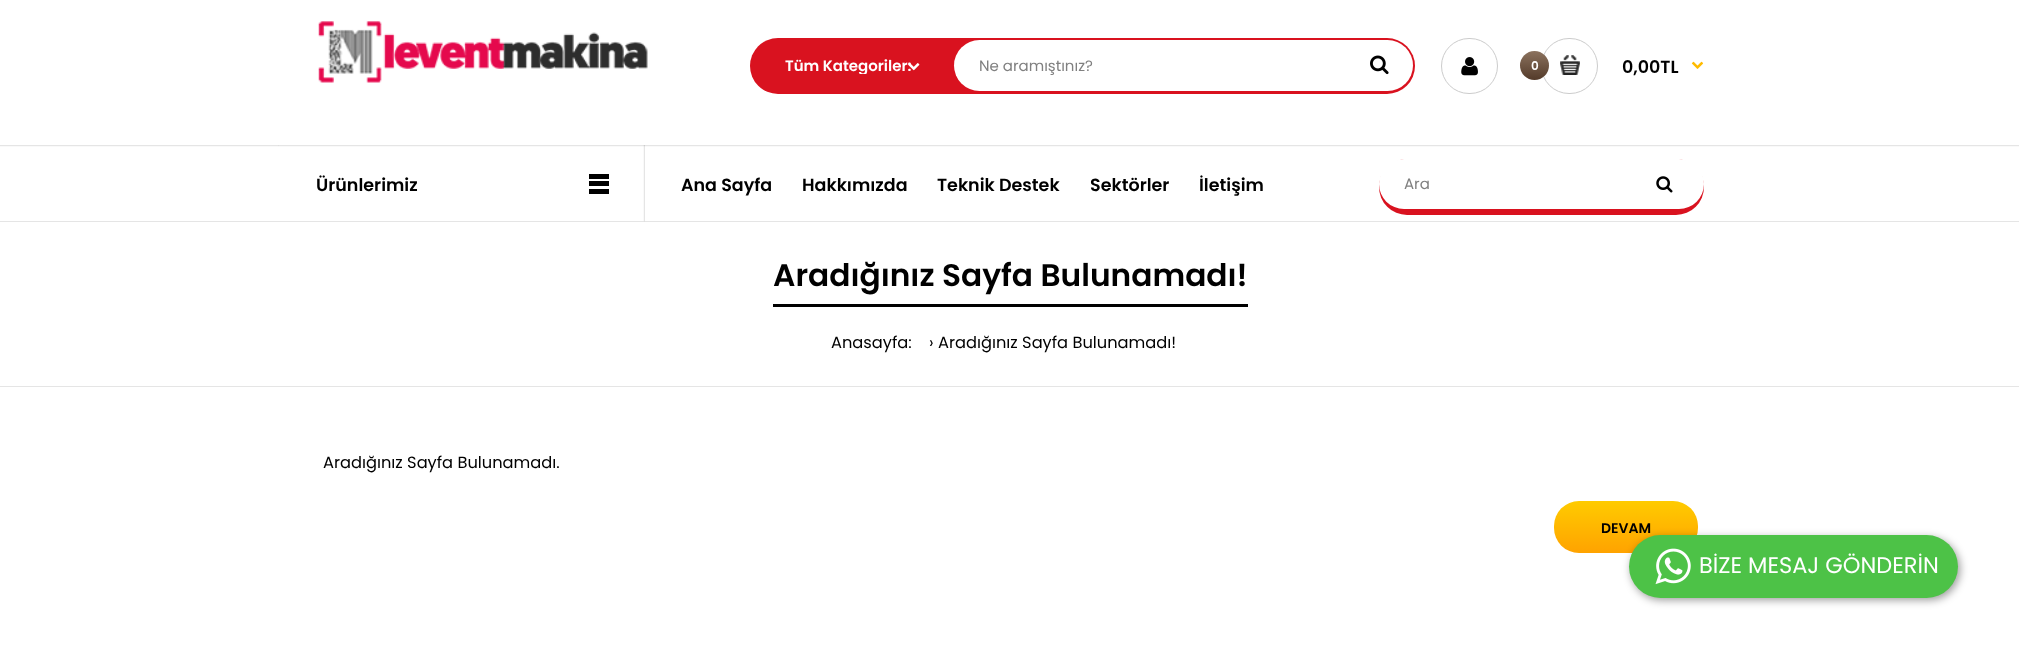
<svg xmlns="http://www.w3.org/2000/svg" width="2019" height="660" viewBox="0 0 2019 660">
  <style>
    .t1 { font: 600 15px Poppins; fill: #fff; }
    .t2 { font: 15px Poppins; fill: #808080; }
    .t3 { font: 600 12px Poppins; fill: #fff; }
    .t4 { font: 600 17.5px Poppins; fill: #000; }
    .t5 { font: 600 31.25px Poppins; fill: #000; }
    .t6 { font: 16.25px Poppins; fill: #000; }
    .t7 { font: 600 14px Poppins; fill: #000; }
    .t8 { font: 22.5px Poppins; fill: #fff; }
  </style>
  <defs>
    <clipPath id="clip1"><rect x="785" y="59" width="136" height="15"/></clipPath>
    <linearGradient id="g1" gradientUnits="userSpaceOnUse" x1="1534" y1="51" x2="1534" y2="80"><stop offset="0" stop-color="#543b2a"/><stop offset="0" stop-color="#8b725e"/><stop offset="0.99" stop-color="#543b2a"/></linearGradient>
    <linearGradient id="g2" gradientUnits="userSpaceOnUse" x1="1626" y1="501" x2="1626" y2="553"><stop offset="0" stop-color="#ffa300"/><stop offset="0" stop-color="#ffcb00"/><stop offset="0.99" stop-color="#ffa300"/></linearGradient>
  </defs>
  <rect width="100%" height="100%" fill="#fff"/>
  <image x="318" y="21" width="330" height="62" href="images/1.png"/>
  <rect x="750" y="38" width="665" height="56" rx="28" fill="#d9121f"/>
  <g clip-path="url(#clip1)">
    <text x="785" y="71" class="t1">Tüm Kategoriler:</text>
  </g>
  <image x="908" y="63" width="12" height="8" href="images/2.png"/>
  <rect x="954" y="40" width="459" height="51" rx="25.5" fill="#fff"/>
  <text x="979" y="71" class="t2">Ne aramıştınız?</text>
  <image x="1370" y="55" width="19" height="20" href="images/3.png"/>
  <rect x="1441.5" y="38.5" width="56" height="55" rx="27.5" fill="none" stroke="#ccc"/>
  <image x="1461" y="57" width="17" height="19" href="images/4.png"/>
  <rect x="1541.5" y="38.5" width="56" height="55" rx="27.5" fill="none" stroke="#ccc"/>
  <circle cx="1534.5" cy="65.5" r="14.5" fill="url(#g1)"/>
  <text x="1531" y="70" class="t3">0</text>
  <image x="1560" y="55" width="20" height="20" href="images/5.png"/>
  <text x="1622" y="73" class="t4">0,00TL</text>
  <image x="1691" y="61" width="13" height="8" href="images/6.png"/>
  <image x="645" y="145" width="1374" height="2" href="images/7.png"/>
  <image x="0" y="145" width="279" height="2" href="images/8.png"/>
  <rect x="0" y="221" width="2019" height="1" fill="#e5e5e5"/>
  <image x="643" y="145" width="2" height="77" href="images/9.png"/>
  <image x="278" y="145" width="367" height="2" href="images/10.png"/>
  <text x="316" y="191" class="t4">Ürünlerimiz</text>
  <rect x="589" y="174" width="20" height="5" fill="#000"/>
  <rect x="589" y="181" width="20" height="5" fill="#000"/>
  <rect x="589" y="189" width="20" height="5" fill="#000"/>
  <text x="681" y="191" class="t4">Ana Sayfa</text>
  <text x="802" y="191" class="t4">Hakkımızda</text>
  <text x="937" y="191" class="t4">Teknik Destek</text>
  <text x="1090" y="191" class="t4">Sektörler</text>
  <text x="1199" y="191" class="t4">İletişim</text>
  <rect x="1379" y="159" width="325" height="56" rx="28" fill="#d9121f"/>
  <rect x="1379" y="159" width="325" height="50" rx="25" fill="#fff"/>
  <text x="1404" y="189" class="t2">Ara</text>
  <image x="1656" y="176" width="17" height="17" href="images/11.png"/>
  <rect x="0" y="386" width="2019" height="1" fill="#e5e5e5"/>
  <rect x="773" y="304" width="475" height="3" fill="#000"/>
  <text x="773" y="286" class="t5">Aradığınız Sayfa Bulunamadı!</text>
  <text x="831" y="348" class="t6">Anasayfa:</text>
  <text x="929" y="348" class="t6">›</text>
  <text x="938" y="348" class="t6">Aradığınız Sayfa Bulunamadı!</text>
  <text x="323" y="468" class="t6">Aradığınız Sayfa Bulunamadı.</text>
  <rect x="1554" y="501" width="144" height="52" rx="25" fill="url(#g2)"/>
  <text x="1601" y="533" class="t7">DEVAM</text>
  <rect x="1631" y="538" width="329" height="62" rx="31" fill="#00000066" filter="blur(4px)"/>
  <rect x="1629" y="535" width="329" height="63" rx="31.5" fill="#4dc247"/>
  <image x="1655" y="548" width="36" height="37" href="images/12.png"/>
  <text x="1699" y="573" class="t8">BİZE MESAJ GÖNDERİN</text>
</svg>
